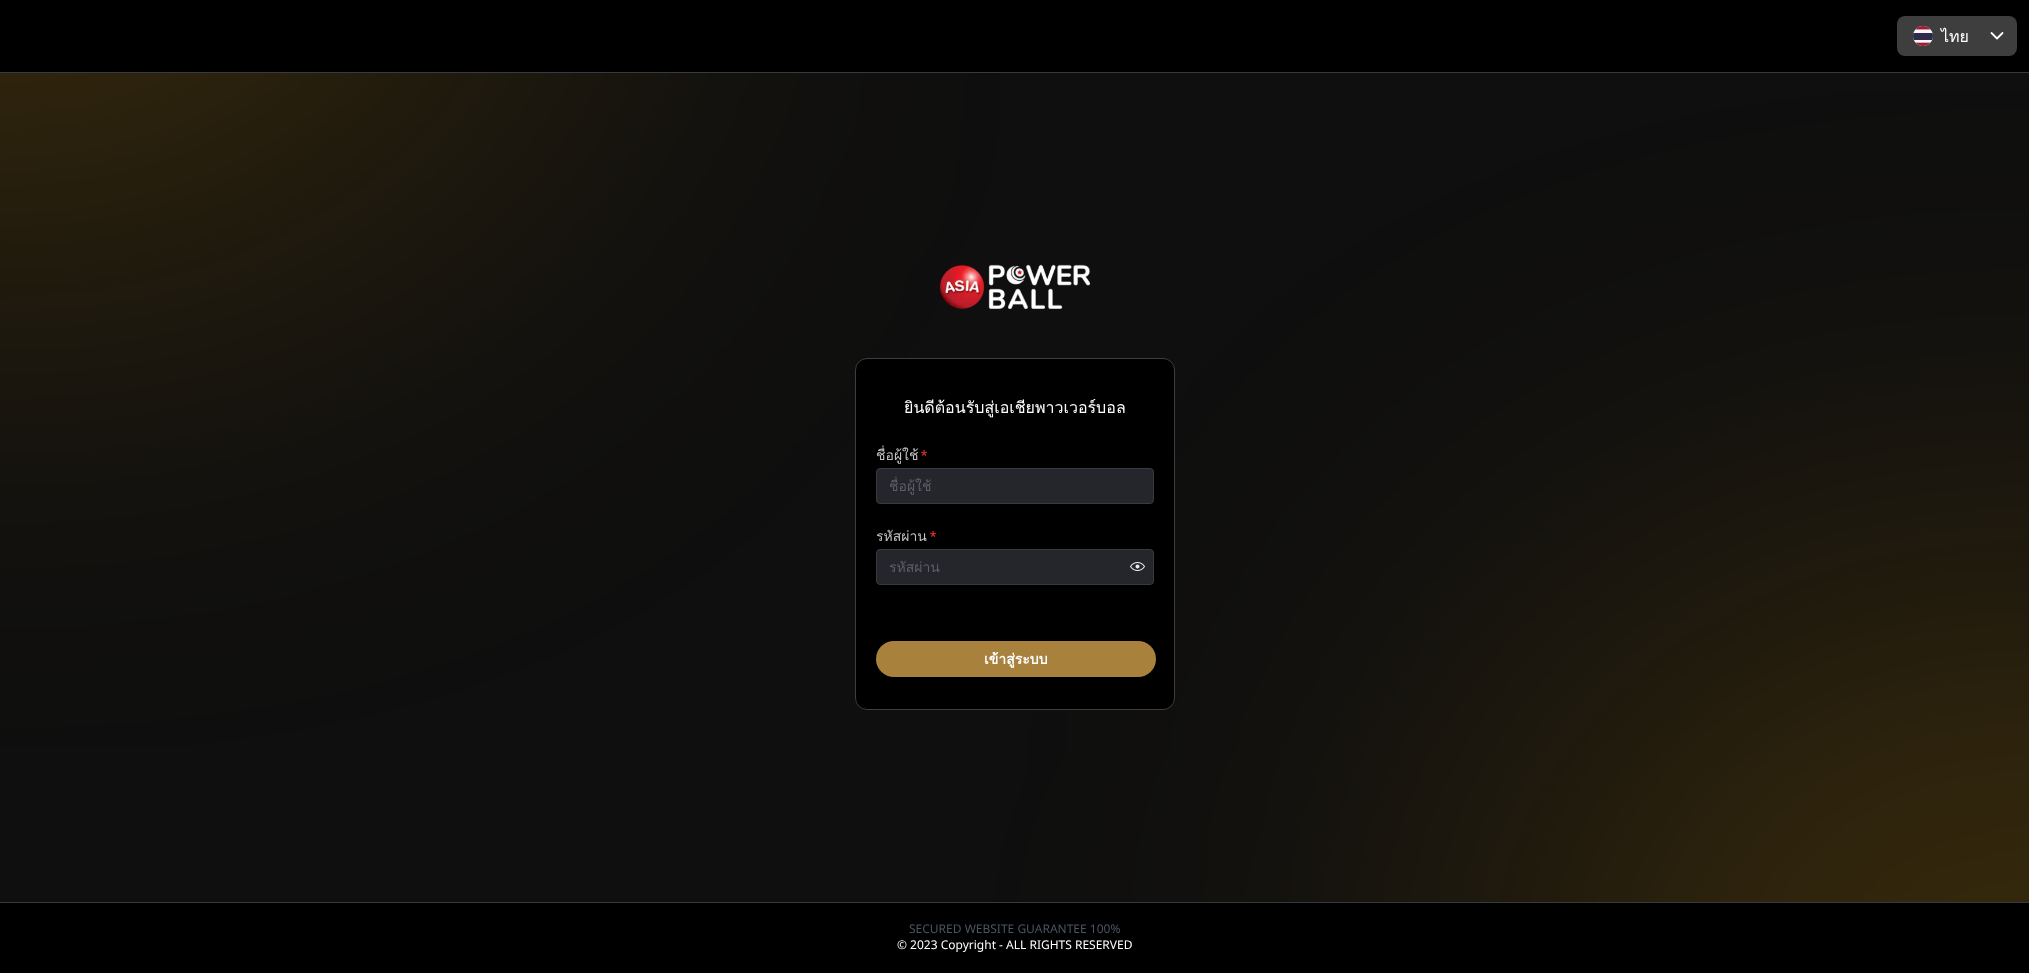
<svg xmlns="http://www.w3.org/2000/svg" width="2029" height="973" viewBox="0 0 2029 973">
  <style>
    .t1 { font: 16px Loma; fill: #fff; }
    .t2 { font: 14px Loma; fill: #c1c2c5; }
    .t3 { font: 500 14px Roboto; fill: #e03131; }
    .t4 { font: 14px Loma; fill: #5c5f66; }
    .t5 { font: bold 14px Loma; fill: #fff; }
    .t6 { font: 12px Noto Sans; fill: #4b5563; }
    .t7 { font: 12px Noto Sans; fill: #fff; }
  </style>
  <defs>
    <clipPath id="clip1"><rect x="889" y="475" width="252" height="22"/></clipPath>
    <clipPath id="clip2"><rect x="984" y="642" width="63" height="34"/></clipPath>
  </defs>
  <rect width="100%" height="100%" fill="#000"/>
  <rect x="1897" y="16" width="120" height="40" rx="8" fill="#3e3e3e"/>
  <image x="1913" y="26" width="20" height="20" href="images/1.png"/>
  <text x="1941" y="42" class="t1">ไทย</text>
  <path d="M1991.5 33L1997 38.5L2002.5 33" fill="none" stroke="#fff" stroke-width="1.8" stroke-linecap="round" stroke-linejoin="round"/>
  <rect x="0" y="72" width="2029" height="1" fill="#373a40"/>
  <image x="0" y="73" width="2029" height="829" href="images/2.png"/>
  <image x="939" y="264" width="151" height="45" href="images/3.png"/>
  <rect x="855.5" y="358.5" width="319" height="351" rx="11.5" fill="#000" stroke="#3e3e3e"/>
  <text x="904" y="413" class="t1">ยินดีต้อนรับสู่เอเชียพาวเวอร์บอล</text>
  <text x="876" y="460" class="t2">ชื่อผู้ใช้</text>
  <text x="921" y="460" class="t3">*</text>
  <rect x="876.5" y="468.5" width="277" height="35" rx="3.5" fill="#25262b" stroke="#373a40"/>
  <g clip-path="url(#clip1)">
    <text x="889" y="491" class="t4">ชื่อผู้ใช้</text>
  </g>
  <text x="876" y="541" class="t2">รหัสผ่าน</text>
  <text x="930" y="541" class="t3">*</text>
  <rect x="876.5" y="549.5" width="277" height="35" rx="3.5" fill="#25262b" stroke="#373a40"/>
  <text x="889" y="572" class="t4">รหัสผ่าน</text>
  <image x="1130" y="562" width="15" height="9" href="images/4.png"/>
  <rect x="876" y="641" width="280" height="36" rx="18" fill="#a8823d"/>
  <g clip-path="url(#clip2)">
    <text x="984" y="664" class="t5">เข้าสู่ระบบ</text>
  </g>
  <rect x="0" y="902" width="2029" height="1" fill="#373a40"/>
  <text x="909" y="933" class="t6">SECURED WEBSITE GUARANTEE 100%</text>
  <text x="897" y="949" class="t7">© 2023 Copyright - ALL RIGHTS RESERVED</text>
</svg>
